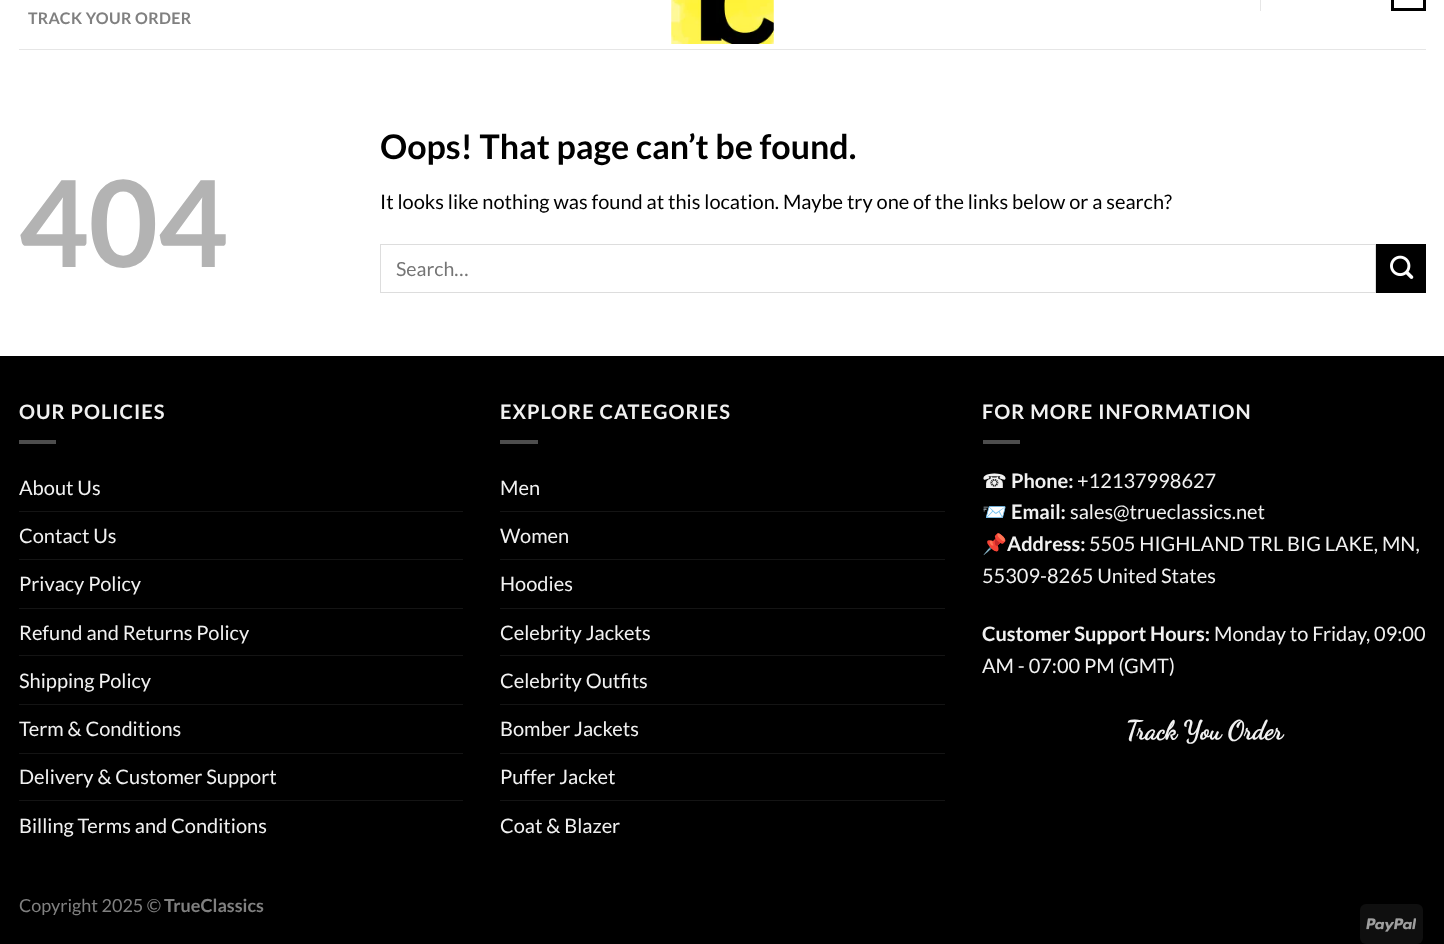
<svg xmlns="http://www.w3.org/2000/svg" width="1444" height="944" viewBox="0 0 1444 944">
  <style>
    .t1 { font: bold 16px Lato; letter-spacing: 0.3px; fill: #808080; }
    .t2 { font: bold 120px Lato; fill: #b3b3b3; }
    .t3 { font: bold 34px Lato; fill: #000; }
    .t4 { font: 20px Lato; fill: #000; }
    .t5 { font: 19.5px Lato; fill: #757575; }
    .t6 { font: bold 20px Lato; letter-spacing: 1px; fill: #f1f1f1; }
    .t7 { font: 20px Lato; fill: #f1f1f1; }
    .t8 { font: 20px DejaVu Sans; fill: #f1f1f1; }
    .t9 { font: bold 20px Lato; fill: #f1f1f1; }
    .t10 { font: bold 20px Noto Color Emoji; fill: #f1f1f1; }
    .t11 { font: bold 26px Dancing Script; fill: #f1f1f1; }
    .t12 { font: 18px Lato; fill: #808080; }
    .t13 { font: bold 18px Lato; fill: #808080; }
  </style>
  <rect width="100%" height="100%" fill="#fff"/>
  <text x="28" y="24" class="t1">TRACK YOUR ORDER</text>
  <image x="671" y="0" width="103" height="44" href="images/1.png"/>
  <rect x="1260" y="0" width="1" height="11" fill="#e6e6e6"/>
  <rect x="1392.5" y="-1.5" width="32" height="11" fill="none" stroke="#000" stroke-width="3"/>
  <rect x="19" y="49" width="1407" height="1" fill="#e6e6e6"/>
  <text x="19" y="267" class="t2">404</text>
  <text x="380" y="159" class="t3">Oops! That page can’t be found.</text>
  <text x="380" y="209" class="t4">It looks like nothing was found at this location. Maybe try one of the links below or a search?</text>
  <rect x="380.5" y="244.5" width="995" height="48" fill="none" stroke="#ddd"/>
  <text x="396" y="276" class="t5">Search…</text>
  <rect x="1376" y="244" width="50" height="49" fill="#000"/>
  <image x="1390" y="255" width="24" height="24" href="images/2.png"/>
  <rect x="0" y="356" width="1444" height="588" fill="#000"/>
  <text x="19" y="419" class="t6">OUR POLICIES</text>
  <rect x="19" y="440" width="37" height="4" fill="#4d4d4d"/>
  <text x="19" y="495" class="t7">About Us</text>
  <rect x="19" y="511" width="444" height="1" fill="#141414"/>
  <text x="19" y="543" class="t7">Contact Us</text>
  <rect x="19" y="559" width="444" height="1" fill="#141414"/>
  <text x="19" y="591" class="t7">Privacy Policy</text>
  <rect x="19" y="608" width="444" height="1" fill="#141414"/>
  <text x="19" y="640" class="t7">Refund and Returns Policy</text>
  <rect x="19" y="655" width="444" height="1" fill="#141414"/>
  <text x="19" y="688" class="t7">Shipping Policy</text>
  <rect x="19" y="704" width="444" height="1" fill="#141414"/>
  <text x="19" y="736" class="t7">Term &amp; Conditions</text>
  <rect x="19" y="753" width="444" height="1" fill="#141414"/>
  <text x="19" y="784" class="t7">Delivery &amp; Customer Support</text>
  <rect x="19" y="800" width="444" height="1" fill="#141414"/>
  <text x="19" y="833" class="t7">Billing Terms and Conditions</text>
  <text x="500" y="419" class="t6">EXPLORE CATEGORIES</text>
  <rect x="500" y="440" width="38" height="4" fill="#4d4d4d"/>
  <text x="500" y="495" class="t7">Men</text>
  <rect x="500" y="511" width="445" height="1" fill="#141414"/>
  <text x="500" y="543" class="t7">Women</text>
  <rect x="500" y="559" width="445" height="1" fill="#141414"/>
  <text x="500" y="591" class="t7">Hoodies</text>
  <rect x="500" y="608" width="445" height="1" fill="#141414"/>
  <text x="500" y="640" class="t7">Celebrity Jackets</text>
  <rect x="500" y="655" width="445" height="1" fill="#141414"/>
  <text x="500" y="688" class="t7">Celebrity Outfits</text>
  <rect x="500" y="704" width="445" height="1" fill="#141414"/>
  <text x="500" y="736" class="t7">Bomber Jackets</text>
  <rect x="500" y="753" width="445" height="1" fill="#141414"/>
  <text x="500" y="784" class="t7">Puffer Jacket</text>
  <rect x="500" y="800" width="445" height="1" fill="#141414"/>
  <text x="500" y="833" class="t7">Coat &amp; Blazer</text>
  <text x="982" y="419" class="t6">FOR MORE INFORMATION</text>
  <rect x="983" y="440" width="37" height="4" fill="#4d4d4d"/>
  <text x="982" y="488" class="t8">☎</text>
  <text x="1011" y="488" class="t9">Phone:</text>
  <text x="1077" y="488" class="t7">+12137998627</text>
  <text x="982" y="519" class="t10">📨</text>
  <text x="1011" y="519" class="t9">Email:</text>
  <text x="1070" y="519" class="t7">sales@trueclassics.net</text>
  <text x="982" y="551" class="t10">📌</text>
  <text x="1007" y="551" class="t9">Address:</text>
  <text x="1089" y="551" class="t7">5505 HIGHLAND TRL BIG LAKE, MN,</text>
  <text x="982" y="583" class="t7">55309-8265 United States</text>
  <text x="982" y="641" class="t9">Customer Support Hours:</text>
  <text x="1214" y="641" class="t7">Monday to Friday, 09:00</text>
  <text x="982" y="673" class="t7">AM - 07:00 PM (GMT)</text>
  <text x="1126" y="739" class="t11">Track You Order</text>
  <text x="19" y="912" class="t12">Copyright 2025 ©</text>
  <text x="164" y="912" class="t13">TrueClassics</text>
  <rect x="1360" y="904" width="63" height="40" rx="6" fill="#0f0f0f"/>
  <image x="1366" y="918" width="50" height="14" href="images/3.png"/>
</svg>
